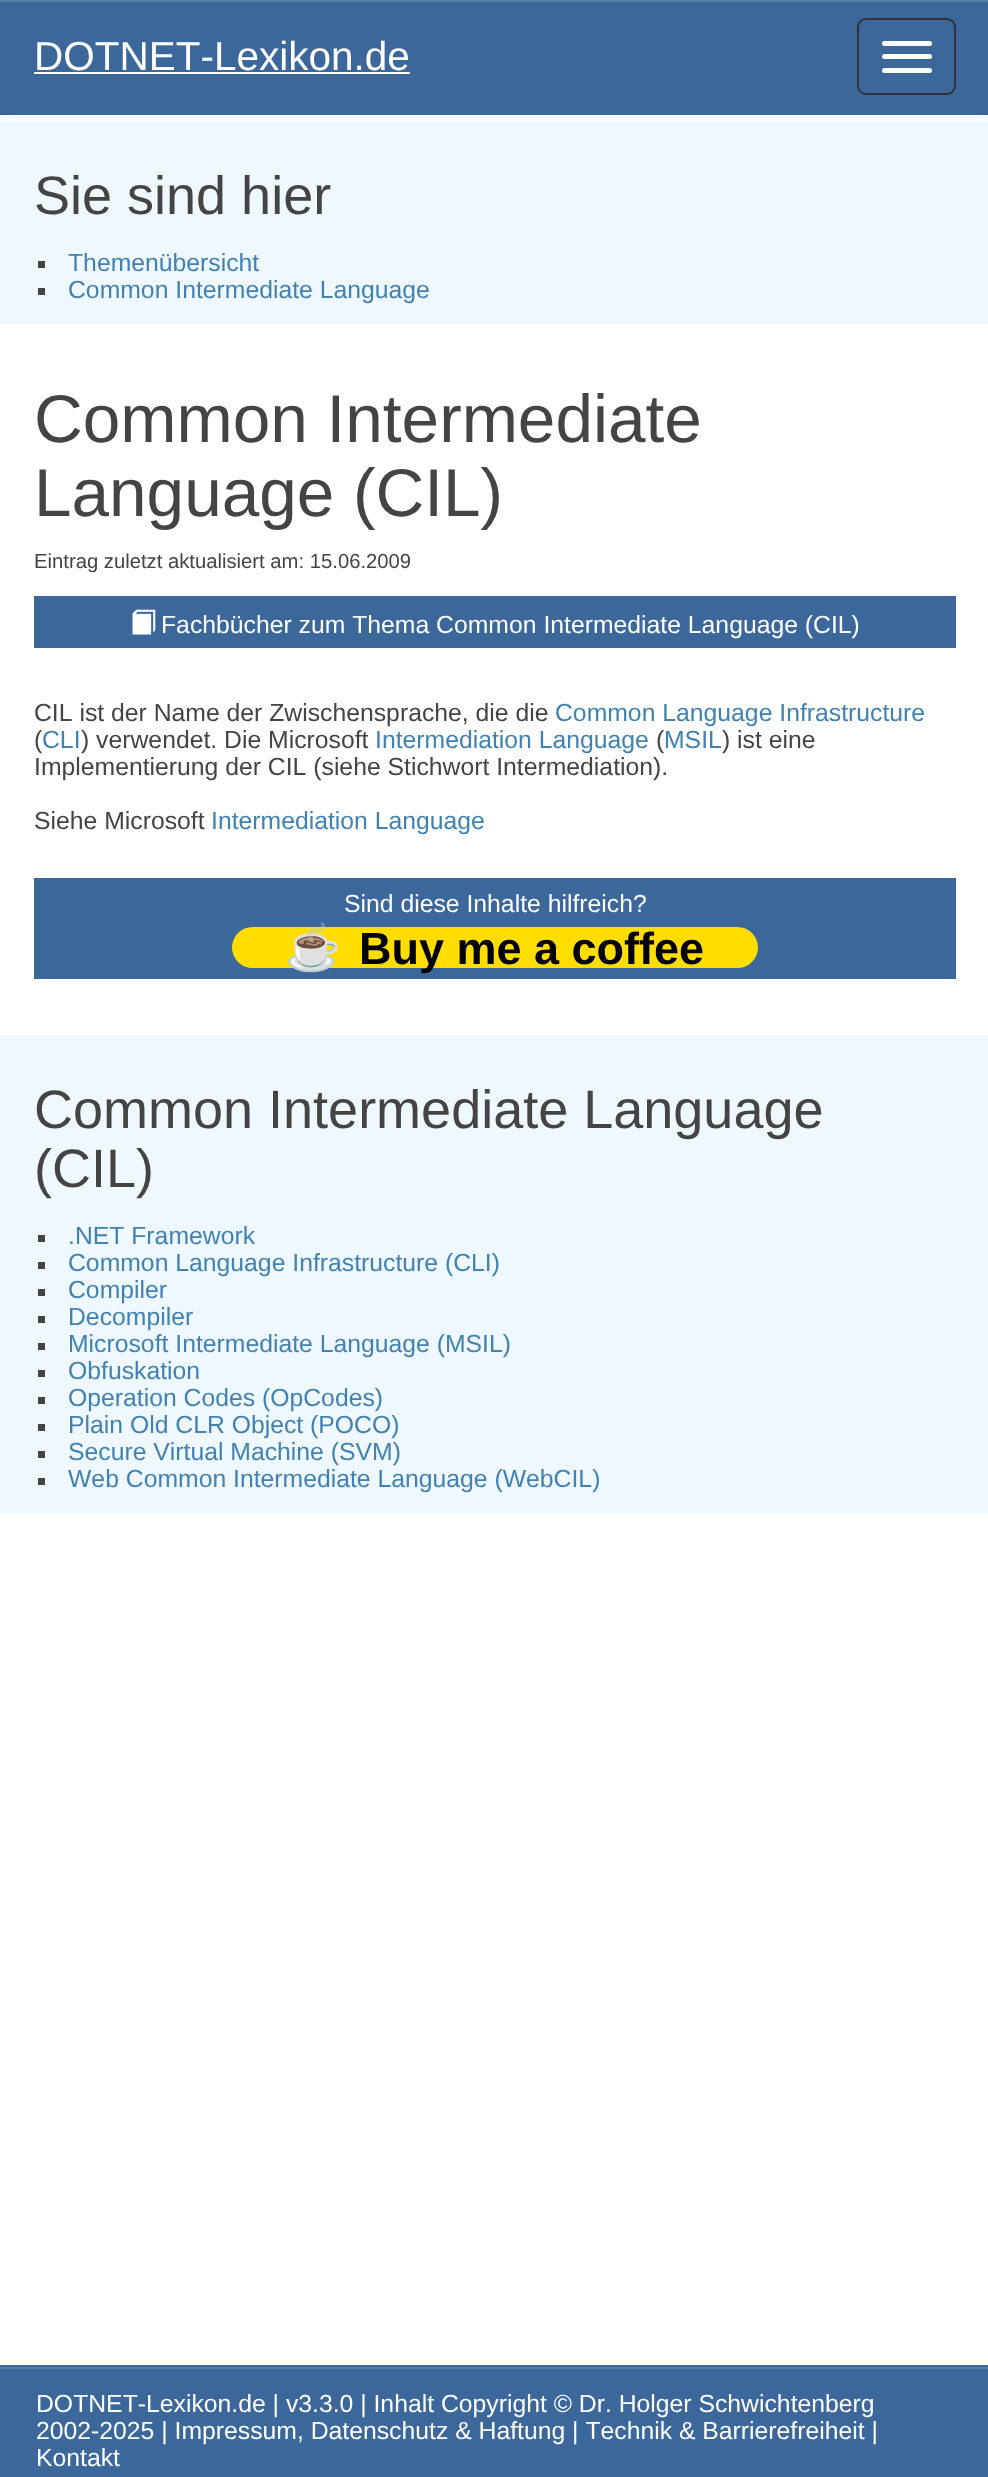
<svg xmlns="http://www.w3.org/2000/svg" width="988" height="2477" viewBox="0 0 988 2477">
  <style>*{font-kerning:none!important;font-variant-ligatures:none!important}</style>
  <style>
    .t1 { font: 40.5px Liberation Sans; fill: #fff; }
    .t2 { font: 54px Liberation Sans; fill: #444; }
    .t3 { font: 24.75px Liberation Sans; fill: #4082b2; }
    .t4 { font: 67.5px Liberation Sans; fill: #444; }
    .t5 { font: 20.25px Liberation Sans; fill: #444; }
    .t6 { font: 24.75px Liberation Sans; fill: #fff; }
    .t7 { font: 24.75px Liberation Sans; fill: #444; }
    .t8 { font: bold 45px Noto Color Emoji; fill: #000; }
    .t9 { font: bold 45px Liberation Sans; fill: #000; }
  </style>
  <rect width="100%" height="100%" fill="#fff"/>
  <rect x="0" y="122" width="988" height="202" fill="#f0f8ff"/>
  <rect x="0" y="2" width="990" height="115" fill="#00000012" filter="blur(5.5px)"/>
  <rect x="0" y="2" width="988" height="113" fill="#3c679b"/>
  <rect x="0" y="0" width="988" height="2" fill="#597eaa"/>
  <text x="34" y="70" class="t1">DOTNET-Lexikon.de</text>
  <rect x="34" y="72" width="376" height="2" fill="#fff"/>
  <rect x="858" y="19" width="97" height="75" rx="8" fill="none" stroke="#333" stroke-width="2"/>
  <rect x="882" y="41" width="50" height="5" rx="2.5" fill="#fff"/>
  <rect x="882" y="54" width="50" height="5" rx="2.5" fill="#fff"/>
  <rect x="882" y="68" width="50" height="5" rx="2.5" fill="#fff"/>
  <text x="34" y="214" class="t2">Sie sind hier</text>
  <rect x="38" y="261" width="7" height="7" fill="#444"/>
  <text x="68" y="271" class="t3">Themenübersicht</text>
  <rect x="38" y="288" width="7" height="7" fill="#444"/>
  <text x="68" y="298" class="t3">Common Intermediate Language</text>
  <text x="34" y="442" class="t4">Common Intermediate</text>
  <text x="34" y="516" class="t4">Language (CIL)</text>
  <text x="34" y="568" class="t5">Eintrag zuletzt aktualisiert am: 15.06.2009</text>
  <rect x="34" y="596" width="922" height="52" fill="#3c679b"/>
  <image x="132" y="609" width="24" height="26" href="images/1.png"/>
  <text x="161" y="633" class="t6">Fachbücher zum Thema Common Intermediate Language (CIL)</text>
  <text x="34" y="721" class="t7">CIL ist der Name der Zwischensprache, die die</text>
  <text x="555" y="721" class="t3">Common Language Infrastructure</text>
  <text x="34" y="748" class="t7">(</text>
  <text x="42" y="748" class="t3">CLI</text>
  <text x="81" y="748" class="t7">) verwendet. Die Microsoft</text>
  <text x="375" y="748" class="t3">Intermediation Language</text>
  <text x="656" y="748" class="t7">(</text>
  <text x="664" y="748" class="t3">MSIL</text>
  <text x="722" y="748" class="t7">) ist eine</text>
  <text x="34" y="775" class="t7">Implementierung der CIL (siehe Stichwort Intermediation).</text>
  <text x="34" y="829" class="t7">Siehe Microsoft</text>
  <text x="211" y="829" class="t3">Intermediation Language</text>
  <rect x="34" y="878" width="922" height="101" fill="#3c679b"/>
  <text x="344" y="912" class="t6">Sind diese Inhalte hilfreich?</text>
  <rect x="232" y="927" width="526" height="41" rx="20.5" fill="#fd0"/>
  <text x="285" y="963" class="t8">☕</text>
  <text x="359" y="964" class="t9">Buy me a coffee</text>
  <rect x="0" y="1035" width="988" height="479" fill="#f0f8ff"/>
  <text x="34" y="1128" class="t2">Common Intermediate Language</text>
  <text x="34" y="1187" class="t2">(CIL)</text>
  <rect x="38" y="1235" width="7" height="7" fill="#444"/>
  <text x="68" y="1244" class="t3">.NET Framework</text>
  <rect x="38" y="1262" width="7" height="7" fill="#444"/>
  <text x="68" y="1271" class="t3">Common Language Infrastructure (CLI)</text>
  <rect x="38" y="1289" width="7" height="7" fill="#444"/>
  <text x="68" y="1298" class="t3">Compiler</text>
  <rect x="38" y="1316" width="7" height="7" fill="#444"/>
  <text x="68" y="1325" class="t3">Decompiler</text>
  <rect x="38" y="1343" width="7" height="7" fill="#444"/>
  <text x="68" y="1352" class="t3">Microsoft Intermediate Language (MSIL)</text>
  <rect x="38" y="1370" width="7" height="7" fill="#444"/>
  <text x="68" y="1379" class="t3">Obfuskation</text>
  <rect x="38" y="1397" width="7" height="7" fill="#444"/>
  <text x="68" y="1406" class="t3">Operation Codes (OpCodes)</text>
  <rect x="38" y="1424" width="7" height="7" fill="#444"/>
  <text x="68" y="1433" class="t3">Plain Old CLR Object (POCO)</text>
  <rect x="38" y="1451" width="7" height="7" fill="#444"/>
  <text x="68" y="1460" class="t3">Secure Virtual Machine (SVM)</text>
  <rect x="38" y="1478" width="7" height="7" fill="#444"/>
  <text x="68" y="1487" class="t3">Web Common Intermediate Language (WebCIL)</text>
  <rect x="0" y="2369" width="988" height="108" fill="#3c679b"/>
  <rect x="0" y="2367" width="988" height="2" fill="#597eaa"/>
  <rect x="0" y="2365" width="988" height="2" fill="#3c679b"/>
  <text x="36" y="2412" class="t6">DOTNET-Lexikon.de | v3.3.0 | Inhalt Copyright © Dr. Holger Schwichtenberg</text>
  <text x="36" y="2439" class="t6">2002-2025 | Impressum, Datenschutz &amp; Haftung | Technik &amp; Barrierefreiheit |</text>
  <text x="36" y="2466" class="t6">Kontakt</text>
</svg>
